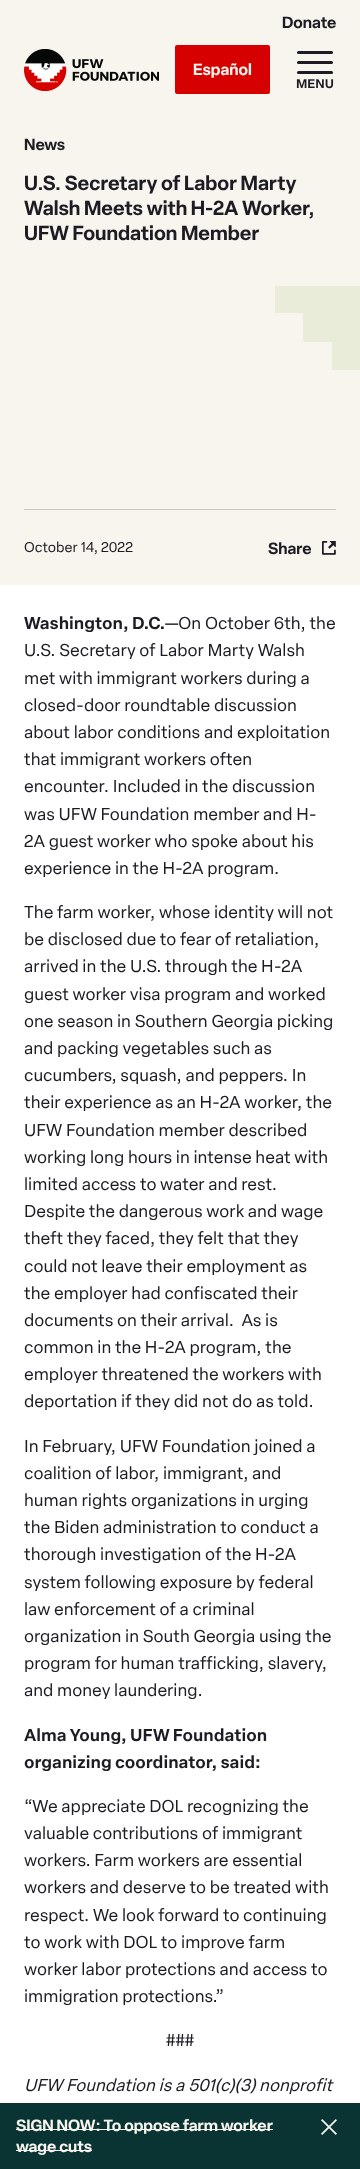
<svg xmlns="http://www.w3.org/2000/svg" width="360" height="2169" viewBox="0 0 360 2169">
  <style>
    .t1 { font: 600 16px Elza; fill: #1d1b23; }
    .t2 { font: 600 16px Elza; fill: #f7f5ed; }
    .t3 { font: 600 12.5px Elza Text; fill: #1d1b23; }
    .t4 { font: 600 20px Elza; fill: #1d1b23; }
    .t5 { font: 14px Elza Text; fill: #1d1b23; }
    .t6 { font: 600 17px Elza Text; fill: #1d1b23; }
    .t7 { font: 17px Elza Text; fill: #1d1b23; }
    .t8 { font: italic 17px Elza Text; fill: #1d1b23; }
  </style>
  <defs>
    <clipPath id="clip1"><rect x="275" y="286" width="85" height="85"/></clipPath>
  </defs>
  <rect width="100%" height="100%" fill="#fff"/>
  <rect x="0" y="0" width="360" height="585" fill="#f7f5ed"/>
  <text x="282" y="28" class="t1">Donate</text>
  <image x="24" y="49" width="135" height="42" href="images/1.png"/>
  <rect x="176" y="46" width="93" height="47" rx="1" fill="#d60000" stroke="#d60000" stroke-width="2"/>
  <text x="193" y="75" class="t2">Español</text>
  <rect x="297" y="61" width="36" height="3" rx="1.5" fill="#1d1b23"/>
  <rect x="297" y="51" width="36" height="3" rx="1.5" fill="#1d1b23"/>
  <rect x="297" y="71" width="36" height="3" rx="1.5" fill="#1d1b23"/>
  <text x="296" y="88" class="t3">MENU</text>
  <text x="24" y="150" class="t1">News</text>
  <text x="24" y="190" class="t4">U.S. Secretary of Labor Marty</text>
  <text x="24" y="215" class="t4">Walsh Meets with H-2A Worker,</text>
  <text x="24" y="240" class="t4">UFW Foundation Member</text>
  <g clip-path="url(#clip1)">
    <path d="M360 370H333C332 370 332 370 332 369V342H304C304 342 303 341 303 341V313H276C275 313 275 313 275 312V285H360Z" fill="#eaecda"/>
  </g>
  <rect x="24" y="509" width="312" height="1" fill="#c8c8ba"/>
  <text x="24" y="552" class="t5">October 14, 2022</text>
  <text x="268" y="554" class="t1">Share</text>
  <image x="322" y="541" width="14" height="14" href="images/2.png"/>
  <text x="24" y="629" class="t6">Washington, D.C.</text>
  <text x="165" y="629" class="t7">—On October 6th, the</text>
  <text x="24" y="656" class="t7">U.S. Secretary of Labor Marty Walsh</text>
  <text x="24" y="684" class="t7">met with immigrant workers during a</text>
  <text x="24" y="711" class="t7">closed-door roundtable discussion</text>
  <text x="24" y="738" class="t7">about labor conditions and exploitation</text>
  <text x="24" y="765" class="t7">that immigrant workers often</text>
  <text x="24" y="792" class="t7">encounter. Included in the discussion</text>
  <text x="24" y="820" class="t7">was UFW Foundation member and H-</text>
  <text x="24" y="847" class="t7">2A guest worker who spoke about his</text>
  <text x="24" y="874" class="t7">experience in the H-2A program.</text>
  <text x="24" y="918" class="t7">The farm worker, whose identity will not</text>
  <text x="24" y="945" class="t7">be disclosed due to fear of retaliation,</text>
  <text x="24" y="972" class="t7">arrived in the U.S. through the H-2A</text>
  <text x="24" y="1000" class="t7">guest worker visa program and worked</text>
  <text x="24" y="1027" class="t7">one season in Southern Georgia picking</text>
  <text x="24" y="1054" class="t7">and packing vegetables such as</text>
  <text x="24" y="1081" class="t7">cucumbers, squash, and peppers. In</text>
  <text x="24" y="1108" class="t7">their experience as an H-2A worker, the</text>
  <text x="24" y="1136" class="t7">UFW Foundation member described</text>
  <text x="24" y="1163" class="t7">working long hours in intense heat with</text>
  <text x="24" y="1190" class="t7">limited access to water and rest.</text>
  <text x="24" y="1217" class="t7">Despite the dangerous work and wage</text>
  <text x="24" y="1244" class="t7">theft they faced, they felt that they</text>
  <text x="24" y="1272" class="t7">could not leave their employment as</text>
  <text x="24" y="1299" class="t7">the employer had confiscated their</text>
  <text x="24" y="1326" class="t7" xml:space="preserve">documents on their arrival.  As is</text>
  <text x="24" y="1353" class="t7">common in the H-2A program, the</text>
  <text x="24" y="1380" class="t7">employer threatened the workers with</text>
  <text x="24" y="1407" class="t7">deportation if they did not do as told.</text>
  <text x="24" y="1452" class="t7">In February, UFW Foundation joined a</text>
  <text x="24" y="1479" class="t7">coalition of labor, immigrant, and</text>
  <text x="24" y="1506" class="t7">human rights organizations in urging</text>
  <text x="24" y="1533" class="t7">the Biden administration to conduct a</text>
  <text x="24" y="1560" class="t7">thorough investigation of the H-2A</text>
  <text x="24" y="1588" class="t7">system following exposure by federal</text>
  <text x="24" y="1615" class="t7">law enforcement of a criminal</text>
  <text x="24" y="1642" class="t7">organization in South Georgia using the</text>
  <text x="24" y="1669" class="t7">program for human trafficking, slavery,</text>
  <text x="24" y="1696" class="t7">and money laundering.</text>
  <text x="24" y="1741" class="t6">Alma Young, UFW Foundation</text>
  <text x="24" y="1768" class="t6">organizing coordinator, said:</text>
  <text x="24" y="1812" class="t7">“We appreciate DOL recognizing the</text>
  <text x="24" y="1839" class="t7">valuable contributions of immigrant</text>
  <text x="24" y="1866" class="t7">workers. Farm workers are essential</text>
  <text x="24" y="1893" class="t7">workers and deserve to be treated with</text>
  <text x="24" y="1921" class="t7">respect. We look forward to continuing</text>
  <text x="24" y="1948" class="t7">to work with DOL to improve farm</text>
  <text x="24" y="1975" class="t7">worker labor protections and access to</text>
  <text x="24" y="2002" class="t7">immigration protections.”</text>
  <text x="166" y="2046" class="t7">###</text>
  <text x="24" y="2091" class="t8">UFW Foundation is a 501(c)(3) nonprofit</text>
  <rect x="0" y="2103" width="360" height="66" fill="#0a3333"/>
  <rect x="16" y="2129" width="257" height="1" fill="#f7f5ed"/>
  <text x="16" y="2131" class="t2">SIGN NOW: To oppose farm worker</text>
  <rect x="16" y="2150" width="76" height="1" fill="#f7f5ed"/>
  <text x="16" y="2152" class="t2">wage cuts</text>
  <image x="321" y="2119" width="16" height="16" href="images/3.png"/>
</svg>
